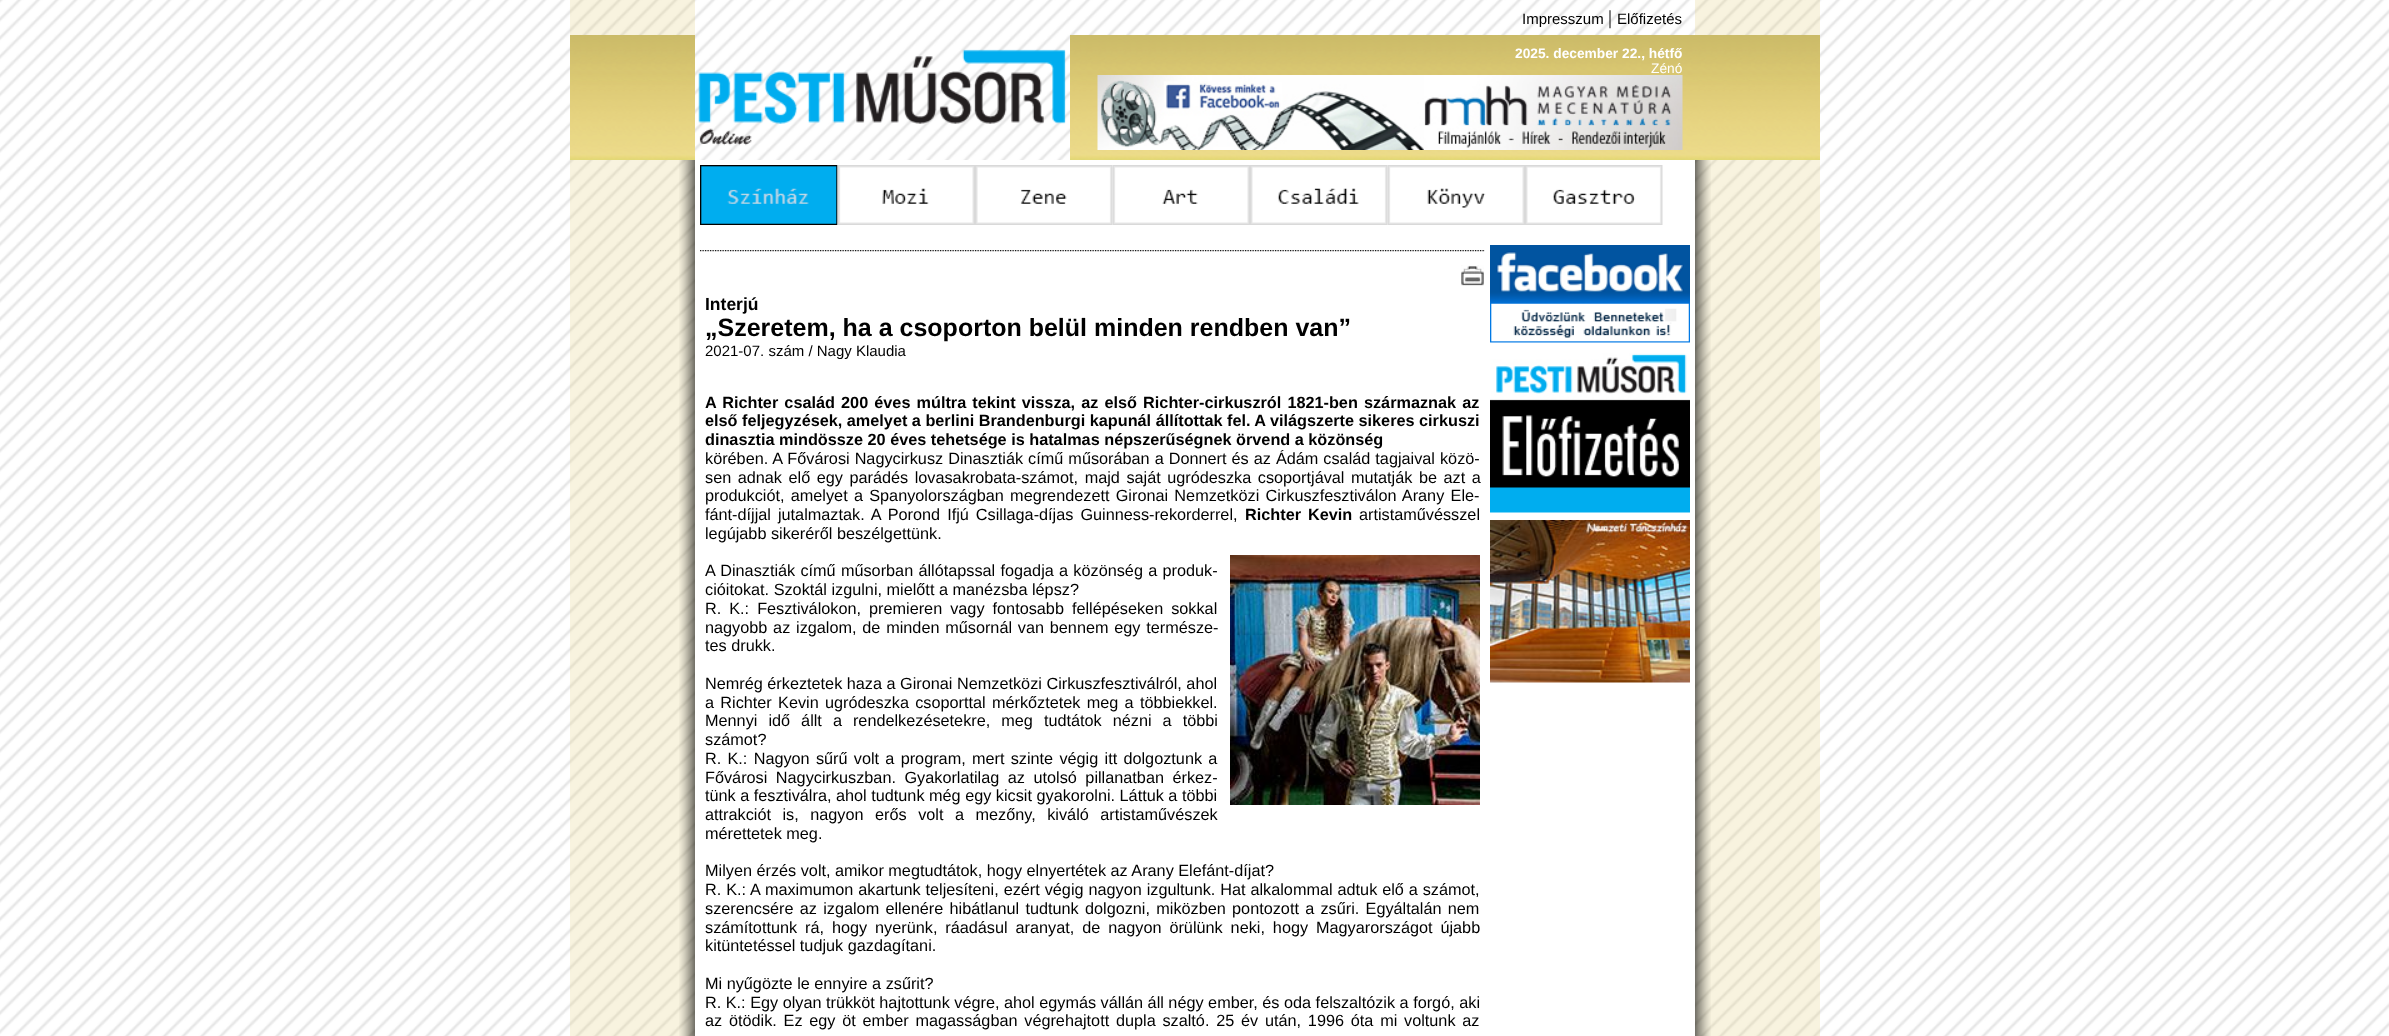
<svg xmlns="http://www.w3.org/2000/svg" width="2389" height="1036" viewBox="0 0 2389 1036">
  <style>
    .t1 { font: 15px Liberation Sans; fill: #000; }
    .t2 { font: 20px Liberation Serif; fill: #000; }
    .t3 { font: bold 13.75px Liberation Sans; fill: #fff; }
    .t4 { font: 13.75px Liberation Sans; fill: #fff; }
    .t5 { font: bold 17.5px Liberation Sans; fill: #000; }
    .t6 { font: bold 25px Liberation Sans; fill: #000; }
    .t7 { font: bold 16.25px Liberation Sans; fill: #000; }
    .t8 { font: 16.25px Liberation Sans; fill: #000; }
  </style>
  <rect width="100%" height="100%" fill="#fff"/>
  <image x="0" y="0" width="2389" height="1036" href="images/1.png"/>
  <rect x="570" y="0" width="125" height="35" fill="#e3cf8040"/>
  <text x="1522" y="24" class="t1">Impresszum</text>
  <text x="1608" y="24" class="t2">|</text>
  <text x="1617" y="24" class="t1">Előfizetés</text>
  <rect x="1695" y="0" width="125" height="35" fill="#e3cf8040"/>
  <image x="570" y="35" width="125" height="125" href="images/2.png"/>
  <image x="698" y="49" width="368" height="97" href="images/3.png"/>
  <image x="1070" y="35" width="625" height="125" href="images/4.png"/>
  <text x="1515" y="58" class="t3">2025. december 22., hétfő</text>
  <text x="1651" y="73" class="t4">Zénó</text>
  <image x="1097" y="75" width="586" height="75" href="images/5.png"/>
  <image x="1695" y="35" width="125" height="125" href="images/6.png"/>
  <rect x="570" y="160" width="125" height="876" fill="#e3cf8040"/>
  <image x="679" y="160" width="16" height="876" href="images/7.png"/>
  <rect x="695" y="160" width="1000" height="876" fill="#fff"/>
  <image x="700" y="165" width="138" height="60" href="images/8.png"/>
  <image x="837" y="165" width="138" height="60" href="images/9.png"/>
  <image x="975" y="165" width="138" height="60" href="images/10.png"/>
  <image x="1112" y="165" width="138" height="60" href="images/11.png"/>
  <image x="1250" y="165" width="138" height="60" href="images/12.png"/>
  <image x="1387" y="165" width="138" height="60" href="images/13.png"/>
  <image x="1525" y="165" width="138" height="60" href="images/14.png"/>
  <image x="700" y="250" width="785" height="2" href="images/15.png"/>
  <image x="1461" y="265" width="23" height="21" href="images/16.png"/>
  <text x="705" y="310" class="t5">Interjú</text>
  <text x="705" y="336" class="t6">„Szeretem, ha a csoporton belül minden rendben van”</text>
  <text x="705" y="356" class="t1">2021-07. szám / Nagy Klaudia</text>
  <text x="705" y="408" word-spacing="1.6" class="t7">A Richter család 200 éves múltra tekint vissza, az első Richter-cirkuszról 1821-ben származnak az</text>
  <text x="705" y="426" class="t7">első feljegyzések, amelyet a berlini Brandenburgi kapunál állítottak fel. A világszerte sikeres cirkuszi</text>
  <text x="705" y="445" class="t7">dinasztia mindössze 20 éves tehetsége is hatalmas népszerűségnek örvend a közönség</text>
  <text x="705" y="464" word-spacing="0.5" class="t8">körében. A Fővárosi Nagycirkusz Dinasztiák című műsorában a Donnert és az Ádám család tagjaival közö-</text>
  <text x="705" y="483" word-spacing="2" class="t8">sen adnak elő egy parádés lovasakrobata-számot, majd saját ugródeszka csoportjával mutatják be azt a</text>
  <text x="705" y="501" word-spacing="1.75" class="t8">produkciót, amelyet a Spanyolországban megrendezett Gironai Nemzetközi Cirkuszfesztiválon Arany Ele-</text>
  <text x="705" y="520" word-spacing="2.5" class="t8">fánt-díjjal jutalmaztak. A Porond Ifjú Csillaga-díjas Guinness-rekorderrel,</text>
  <text x="1245" y="520" word-spacing="2.5" class="t7">Richter Kevin</text>
  <text x="1359" y="520" class="t8">artistaművésszel</text>
  <text x="705" y="539" class="t8">legújabb sikeréről beszélgettünk.</text>
  <text x="705" y="576" word-spacing="0.75" class="t8">A Dinasztiák című műsorban állótapssal fogadja a közönség a produk-</text>
  <image x="1230" y="555" width="250" height="250" href="images/17.png"/>
  <text x="705" y="595" class="t8">cióitokat. Szoktál izgulni, mielőtt a manézsba lépsz?</text>
  <text x="705" y="614" word-spacing="3.5" class="t8">R. K.: Fesztiválokon, premieren vagy fontosabb fellépéseken sokkal</text>
  <text x="705" y="633" word-spacing="1.25" class="t8">nagyobb az izgalom, de minden műsornál van bennem egy természe-</text>
  <text x="705" y="651" class="t8">tes drukk.</text>
  <text x="705" y="689" class="t8">Nemrég érkeztetek haza a Gironai Nemzetközi Cirkuszfesztiválról, ahol</text>
  <text x="705" y="708" word-spacing="1.75" class="t8">a Richter Kevin ugródeszka csoporttal mérkőztetek meg a többiekkel.</text>
  <text x="705" y="726" word-spacing="6.5" class="t8">Mennyi idő állt a rendelkezésetekre, meg tudtátok nézni a többi</text>
  <text x="705" y="745" class="t8">számot?</text>
  <text x="705" y="764" word-spacing="1.75" class="t8">R. K.: Nagyon sűrű volt a program, mert szinte végig itt dolgoztunk a</text>
  <text x="705" y="783" word-spacing="4" class="t8">Fővárosi Nagycirkuszban. Gyakorlatilag az utolsó pillanatban érkez-</text>
  <text x="705" y="801" class="t8">tünk a fesztiválra, ahol tudtunk még egy kicsit gyakorolni. Láttuk a többi</text>
  <text x="705" y="820" word-spacing="7" class="t8">attrakciót is, nagyon erős volt a mezőny, kiváló artistaművészek</text>
  <text x="705" y="839" class="t8">mérettetek meg.</text>
  <text x="705" y="876" class="t8">Milyen érzés volt, amikor megtudtátok, hogy elnyertétek az Arany Elefánt-díjat?</text>
  <text x="705" y="895" word-spacing="0.4" class="t8">R. K.: A maximumon akartunk teljesíteni, ezért végig nagyon izgultunk. Hat alkalommal adtuk elő a számot,</text>
  <text x="705" y="914" word-spacing="1.75" class="t8">szerencsére az izgalom ellenére hibátlanul tudtunk dolgozni, miközben pontozott a zsűri. Egyáltalán nem</text>
  <text x="705" y="933" word-spacing="3.4" class="t8">számítottunk rá, hogy nyerünk, ráadásul aranyat, de nagyon örülünk neki, hogy Magyarországot újabb</text>
  <text x="705" y="951" class="t8">kitüntetéssel tudjuk gazdagítani.</text>
  <text x="705" y="989" class="t8">Mi nyűgözte le ennyire a zsűrit?</text>
  <text x="705" y="1008" class="t8">R. K.: Egy olyan trükköt hajtottunk végre, ahol egymás vállán áll négy ember, és oda felszaltózik a forgó, aki</text>
  <text x="705" y="1026" word-spacing="2.25" class="t8">az ötödik. Ez egy öt ember magasságban végrehajtott dupla szaltó. 25 év után, 1996 óta mi voltunk az</text>
  <image x="1490" y="245" width="200" height="98" href="images/18.png"/>
  <image x="1490" y="353" width="200" height="160" href="images/19.png"/>
  <image x="1490" y="520" width="200" height="163" href="images/20.png"/>
  <rect x="1695" y="160" width="125" height="876" fill="#e3cf8040"/>
  <image x="1695" y="160" width="16" height="876" href="images/21.png"/>
</svg>
